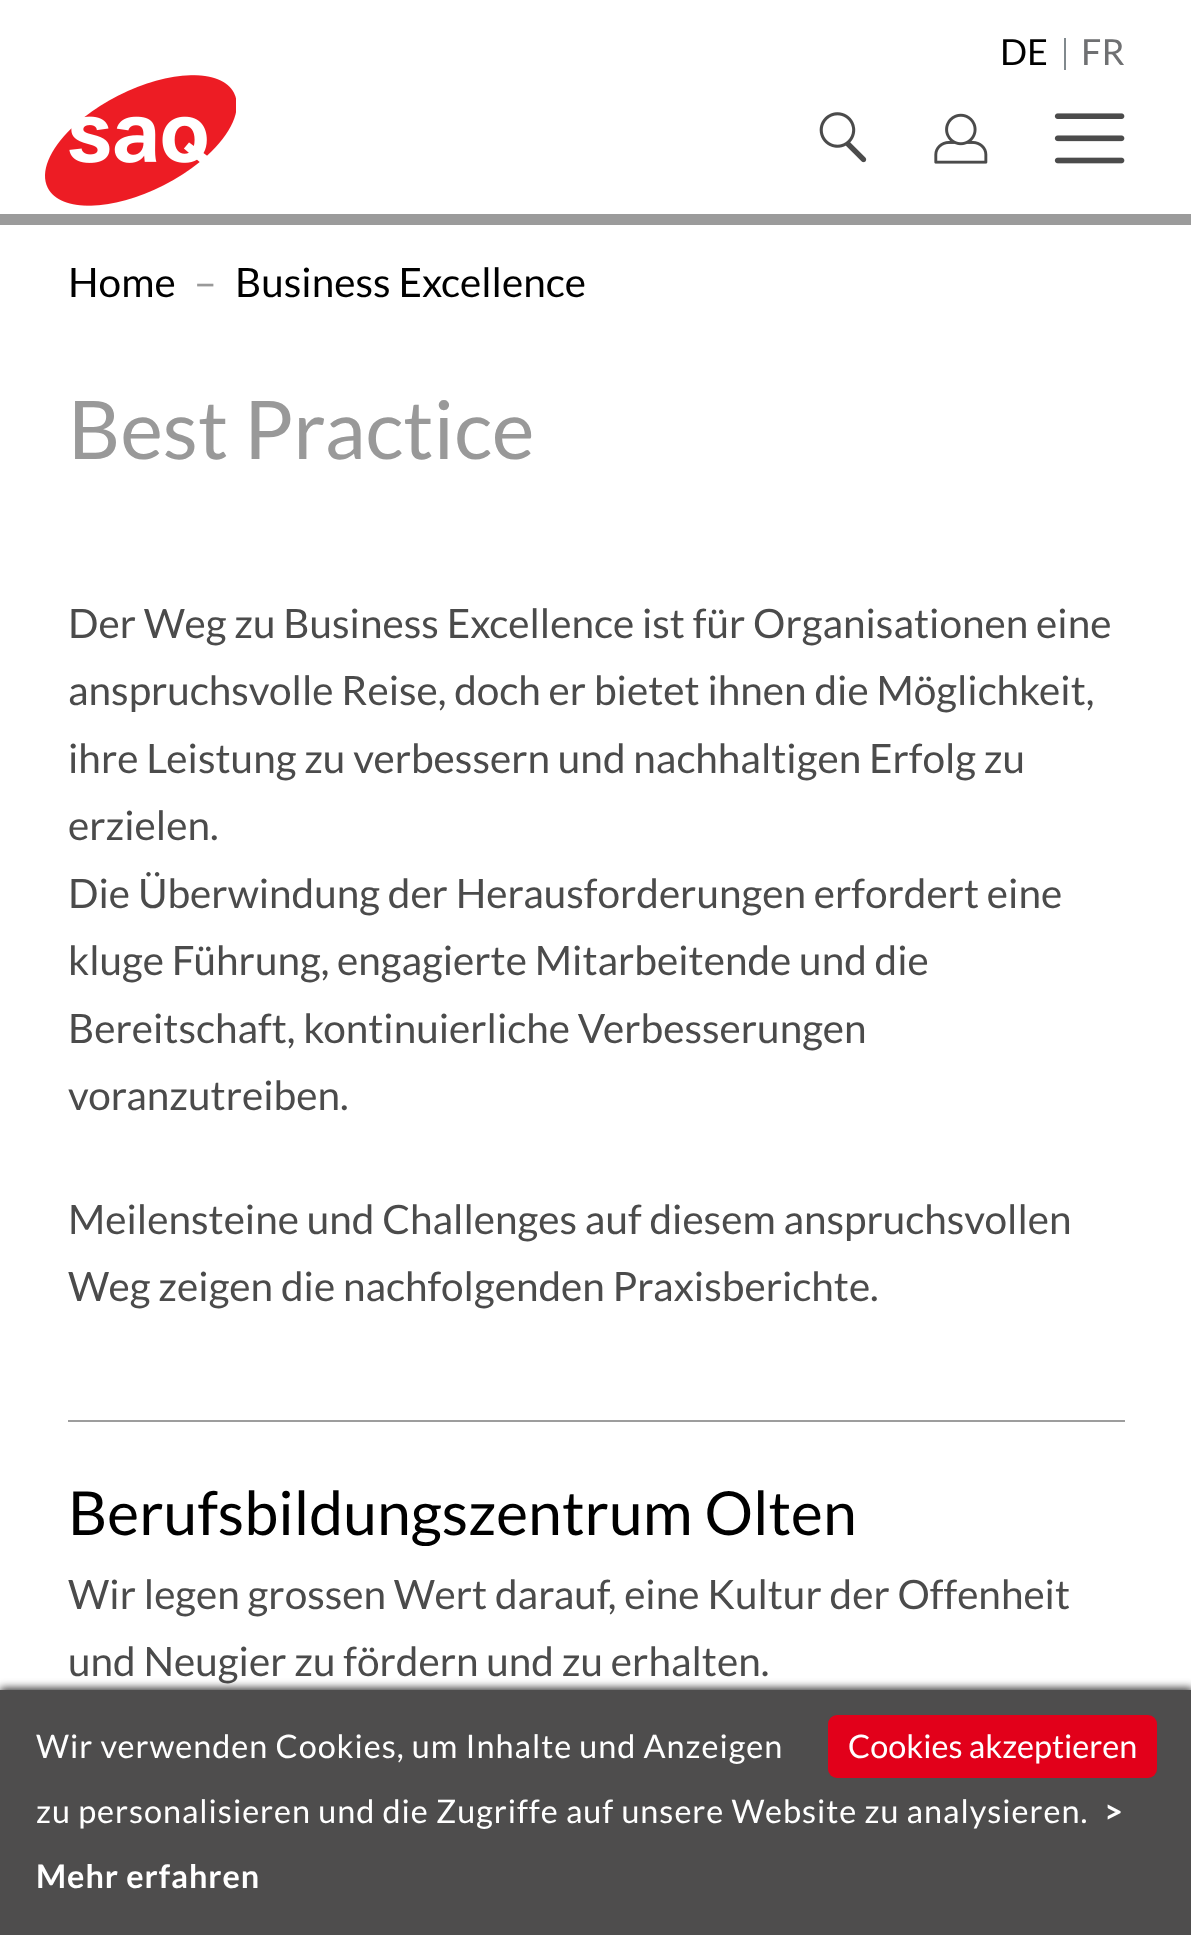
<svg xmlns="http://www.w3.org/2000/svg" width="1191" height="1935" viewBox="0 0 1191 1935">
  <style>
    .t1 { font: 36px Lato; fill: #000; }
    .t2 { font: 36px Lato; fill: #6f7072; }
    .t3 { font: 40.5px Lato; fill: #000; }
    .t4 { font: 40.5px Lato; fill: #999; }
    .t5 { font: 81px Lato; fill: #999; }
    .t6 { font: 40.5px Lato; fill: #4b4b4b; }
    .t7 { font: 60.75px Lato; fill: #000; }
    .t8 { font: 32.4px Lato; letter-spacing: 0.97px; fill: #fff; }
    .t9 { font: bold 32.4px Lato; letter-spacing: 0.97px; fill: #fff; }
    .t10 { font: 32.4px Lato; fill: #fff; }
  </style>
  <rect width="100%" height="100%" fill="#fff"/>
  <rect x="0" y="214" width="1191" height="11" fill="#9b9b9b"/>
  <rect x="1064" y="38" width="2" height="32" fill="#81898d"/>
  <text x="1000" y="65" class="t1">DE</text>
  <text x="1081" y="65" class="t2">FR</text>
  <image x="819" y="112" width="48" height="51" href="images/1.png"/>
  <image x="934" y="113" width="54" height="51" href="images/2.png"/>
  <image x="1054" y="113" width="71" height="51" href="images/3.png"/>
  <image x="45" y="75" width="191" height="131" href="images/4.png"/>
  <text x="68" y="297" class="t3">Home</text>
  <text x="194" y="297" class="t4">–</text>
  <text x="235" y="297" class="t3">Business Excellence</text>
  <text x="68" y="459" class="t5">Best Practice</text>
  <text x="68" y="638" class="t6">Der Weg zu Business Excellence ist für Organisationen eine</text>
  <text x="68" y="705" class="t6">anspruchsvolle Reise, doch er bietet ihnen die Möglichkeit,</text>
  <text x="68" y="773" class="t6">ihre Leistung zu verbessern und nachhaltigen Erfolg zu</text>
  <text x="68" y="840" class="t6">erzielen.</text>
  <text x="68" y="908" class="t6">Die Überwindung der Herausforderungen erfordert eine</text>
  <text x="68" y="975" class="t6">kluge Führung, engagierte Mitarbeitende und die</text>
  <text x="68" y="1043" class="t6">Bereitschaft, kontinuierliche Verbesserungen</text>
  <text x="68" y="1110" class="t6">voranzutreiben.</text>
  <text x="68" y="1234" class="t6">Meilensteine und Challenges auf diesem anspruchsvollen</text>
  <text x="68" y="1301" class="t6">Weg zeigen die nachfolgenden Praxisberichte.</text>
  <rect x="68" y="1420" width="1057" height="2" fill="#9d9d9d"/>
  <text x="68" y="1535" class="t7">Berufsbildungszentrum Olten</text>
  <text x="68" y="1609" class="t6">Wir legen grossen Wert darauf, eine Kultur der Offenheit</text>
  <text x="68" y="1676" class="t6">und Neugier zu fördern und zu erhalten.</text>
  <rect x="0" y="1688" width="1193" height="245" fill="#363535" filter="blur(4.5px)"/>
  <rect x="0" y="1690" width="1191" height="245" fill="#4e4d4d"/>
  <text x="36" y="1758" class="t8">Wir verwenden Cookies, um Inhalte und Anzeigen</text>
  <text x="36" y="1823" class="t8">zu personalisieren und die Zugriffe auf unsere Website zu analysieren.</text>
  <text x="1104" y="1823" class="t9">&gt;</text>
  <text x="36" y="1888" class="t9">Mehr erfahren</text>
  <rect x="828" y="1715" width="329" height="63" rx="9" fill="#e2001a"/>
  <text x="848" y="1758" class="t10">Cookies akzeptieren</text>
</svg>
